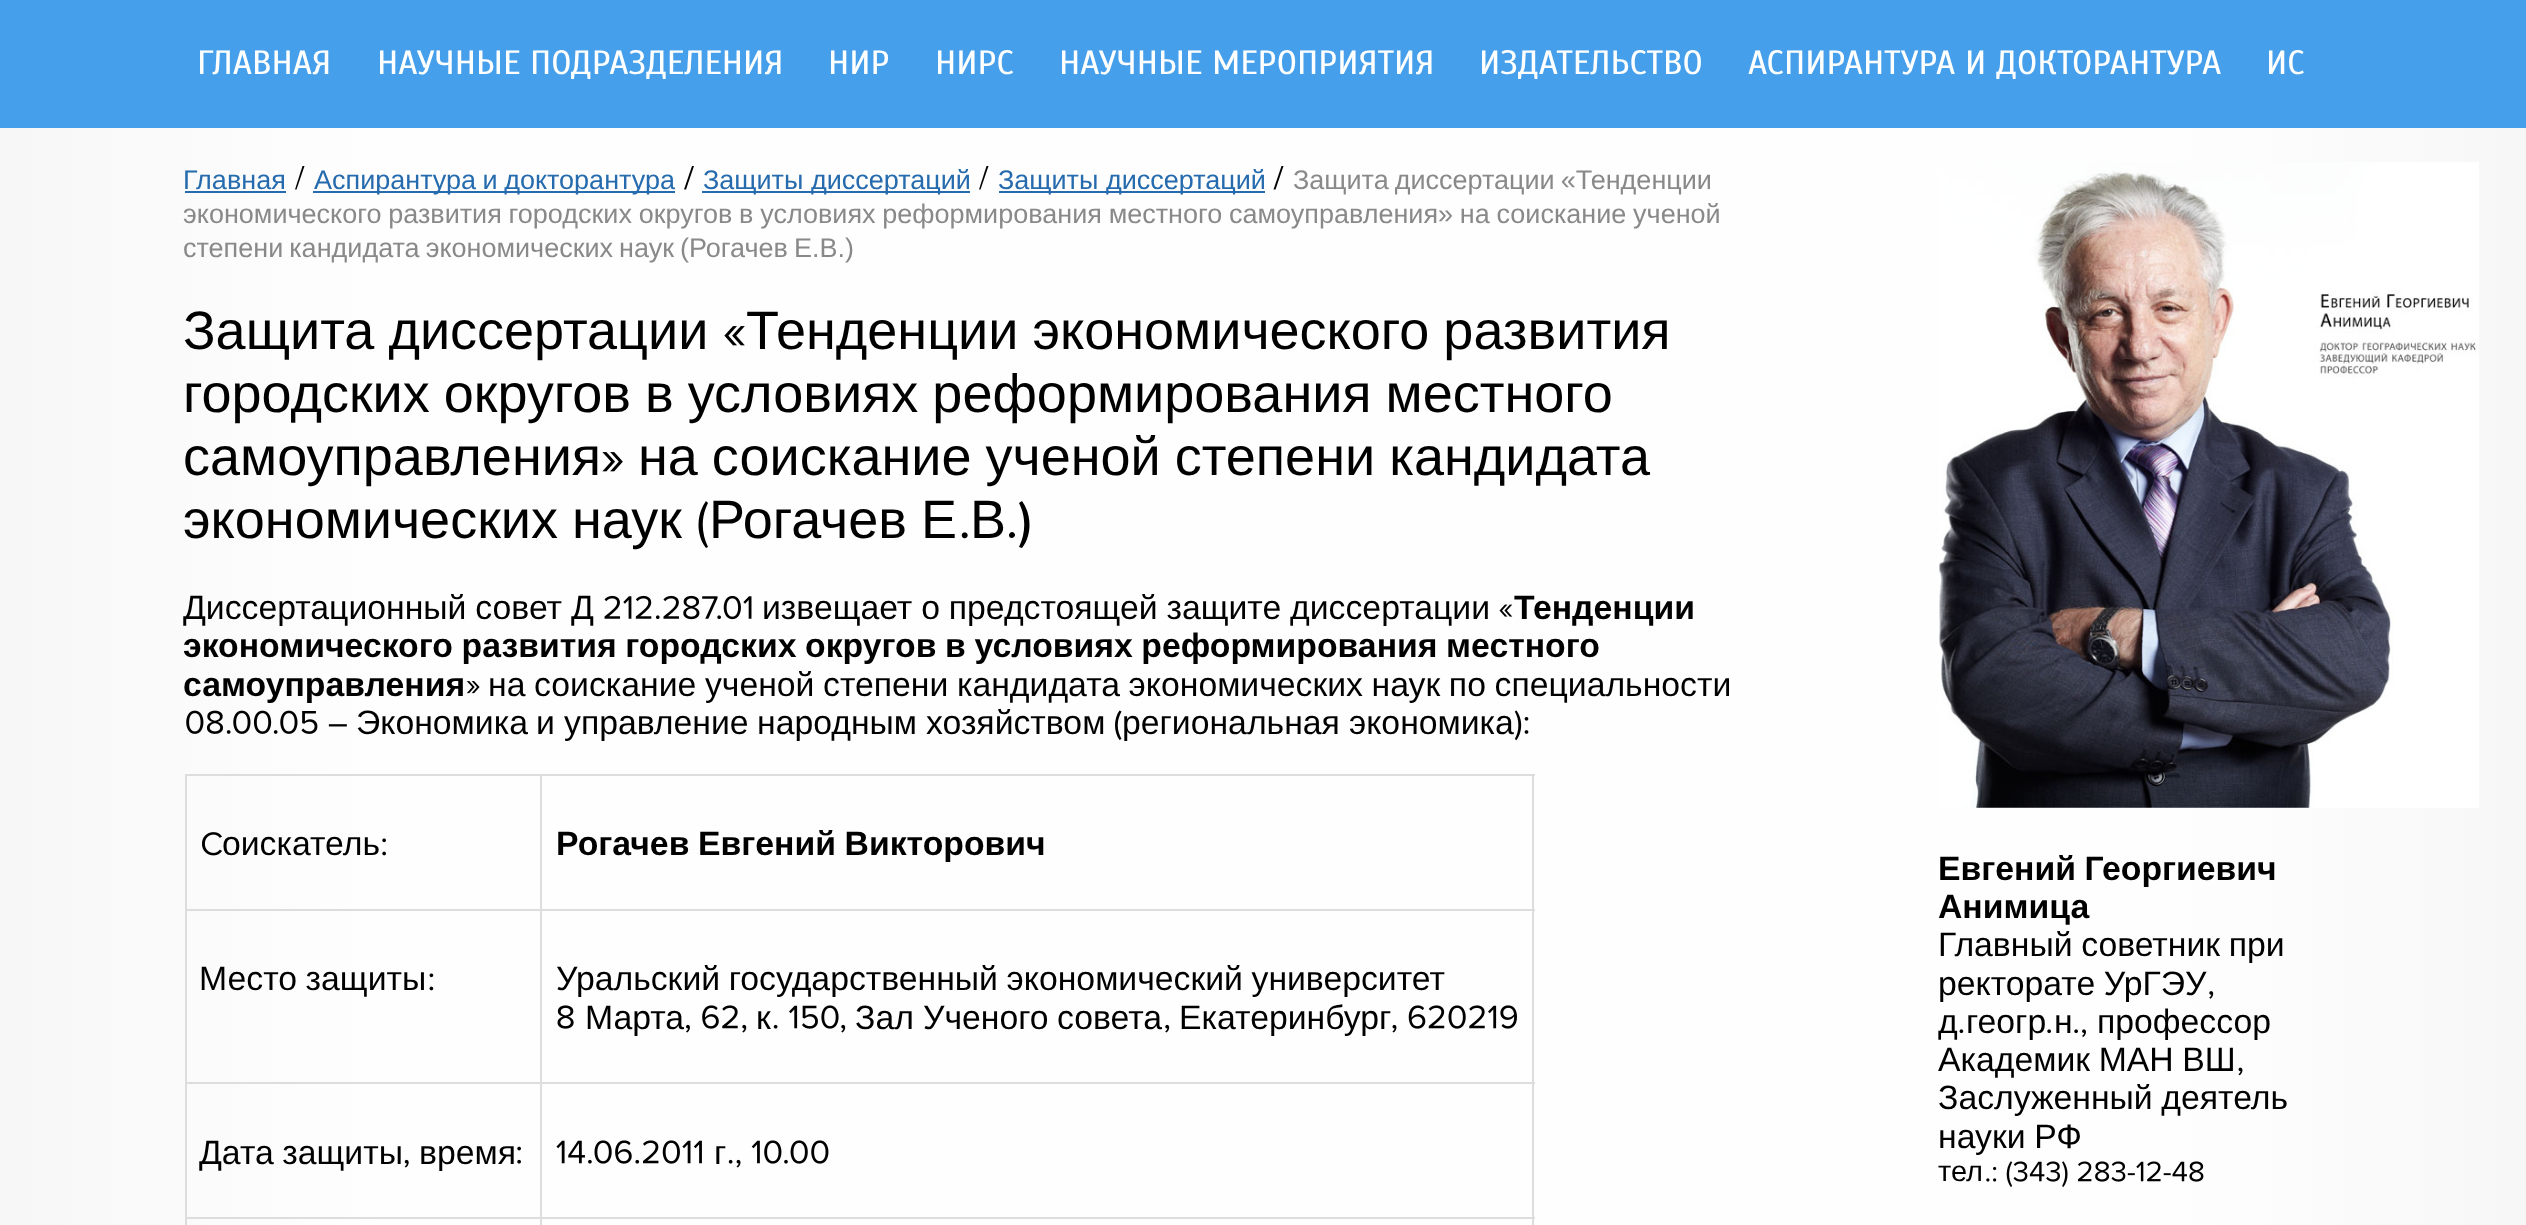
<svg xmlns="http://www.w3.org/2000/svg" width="2526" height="1225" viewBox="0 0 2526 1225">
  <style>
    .t1 { font: 33.75px Scada; fill: #fff; }
    .t2 { font: 27px Liberation Sans; fill: #256bad; }
    .t3 { font: 27px Liberation Sans; fill: #898989; }
    .t4 { font: 54px Liberation Sans; fill: #000; }
    .t5 { font: 33.75px Liberation Sans; fill: #000; }
    .t6 { font: bold 33.75px Liberation Sans; fill: #000; }
    .t7 { font: 29px Liberation Sans; fill: #000; }
  </style>
  <defs>
    <linearGradient id="g1" gradientUnits="userSpaceOnUse" x1="0" y1="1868" x2="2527" y2="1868"><stop offset="0" stop-color="#f7f7f7"/><stop offset="0.15" stop-color="#fefefe"/><stop offset="0.86" stop-color="#fefefe"/><stop offset="1" stop-color="#f7f7f7"/></linearGradient>
  </defs>
  <rect width="100%" height="100%" fill="#fff"/>
  <rect x="0" y="128" width="2526" height="1097" fill="url(#g1)"/>
  <rect x="0" y="0" width="2526" height="128" fill="#459feb"/>
  <text x="197" y="74" class="t1">ГЛАВНАЯ</text>
  <text x="377" y="74" class="t1">НАУЧНЫЕ ПОДРАЗДЕЛЕНИЯ</text>
  <text x="828" y="74" class="t1">НИР</text>
  <text x="935" y="74" class="t1">НИРС</text>
  <text x="1059" y="74" class="t1">НАУЧНЫЕ МЕРОПРИЯТИЯ</text>
  <text x="1479" y="74" class="t1">ИЗДАТЕЛЬСТВО</text>
  <text x="1748" y="74" class="t1">АСПИРАНТУРА И ДОКТОРАНТУРА</text>
  <text x="2266" y="74" class="t1">ИС</text>
  <text x="183" y="189" class="t2">Главная</text>
  <rect x="185" y="191" width="101" height="2" fill="#256bad"/>
  <path d="M296.5 189.5H295L302.5 166H304.5Z" fill="#000"/>
  <rect x="313" y="191" width="362" height="2" fill="#256bad"/>
  <text x="314" y="189" word-spacing="-1" class="t2">Аспирантура и докторантура</text>
  <path d="M686 189.5H684L692 166H694Z" fill="#000"/>
  <rect x="702" y="191" width="268" height="2" fill="#256bad"/>
  <text x="703" y="189" class="t2">Защиты диссертаций</text>
  <path d="M980.5 189.5H979L986.5 166H988.5Z" fill="#000"/>
  <rect x="999" y="191" width="266" height="2" fill="#256bad"/>
  <text x="998" y="189" class="t2">Защиты диссертаций</text>
  <path d="M1275.5 189.5H1273.5L1281.5 166H1283.5Z" fill="#000"/>
  <text x="1293" y="189" word-spacing="-1.5" class="t3">Защита диссертации «Тенденции</text>
  <text x="183" y="223" word-spacing="-0.75" class="t3">экономического развития городских округов в условиях реформирования местного самоуправления» на соискание ученой</text>
  <text x="183" y="257" word-spacing="-1.5" class="t3">степени кандидата экономических наук (Рогачев Е.В.)</text>
  <text x="183" y="349" word-spacing="-1" class="t4">Защита диссертации</text>
  <image x="724" y="326" width="21" height="20" href="images/1.png"/>
  <text x="746" y="349" word-spacing="-1" class="t4">Тенденции экономического развития</text>
  <text x="183" y="412" word-spacing="-1" class="t4">городских округов в условиях реформирования местного</text>
  <text x="183" y="475" class="t4">самоуправления</text>
  <image x="602" y="452" width="21" height="20" href="images/2.png"/>
  <text x="638" y="475" word-spacing="-1" class="t4">на соискание ученой степени кандидата</text>
  <text x="183" y="538" word-spacing="-1" class="t4">экономических наук</text>
  <text x="709" y="538" word-spacing="-1" class="t4">Рогачев Е</text>
  <path d="M708 547L706 548C696 535 696 515 706 501L708 503C701 517 701 532 708 547Z" fill="#000"/>
  <image x="961" y="532" width="7" height="7" href="images/3.png"/>
  <text x="970" y="538" class="t4">В</text>
  <path d="M1014 537C1011 540 1007 536 1010 533C1013 530 1017 535 1014 537ZM1019 547L1022 548C1032 535 1032 515 1022 501L1019 503C1026 517 1026 532 1019 547Z" fill="#000"/>
  <text x="183" y="619" word-spacing="-0.5" class="t5">Диссертационный совет Д</text>
  <image x="604" y="595" width="148" height="25" href="images/4.png"/>
  <text x="762" y="619" word-spacing="-0.5" class="t5">извещает о предстоящей защите диссертации</text>
  <image x="1499" y="604" width="14" height="13" href="images/5.png"/>
  <text x="1514" y="619" class="t6">Тенденции</text>
  <text x="183" y="657" word-spacing="-0.75" class="t6">экономического развития городских округов в условиях реформирования местного</text>
  <text x="183" y="696" class="t6">самоуправления</text>
  <image x="466" y="681" width="14" height="13" href="images/6.png"/>
  <text x="488" y="696" word-spacing="-0.75" class="t5">на соискание ученой степени кандидата экономических наук по специальности</text>
  <image x="186" y="710" width="161" height="24" href="images/7.png"/>
  <text x="356" y="734" class="t5">Экономика</text>
  <text x="536" y="734" class="t5">и</text>
  <text x="564" y="734" class="t5">управление</text>
  <text x="757" y="734" class="t5">народным</text>
  <text x="926" y="734" class="t5">хозяйством</text>
  <text x="1122" y="734" class="t5">региональная</text>
  <path d="M1121.5 739L1119.5 740C1113.5 731.5 1113.5 719 1119.5 710.5L1121.5 711.5C1116.5 720.5 1116.5 730 1121.5 739Z" fill="#000"/>
  <text x="1349" y="734" class="t5">экономика</text>
  <image x="1514" y="710" width="15" height="31" href="images/8.png"/>
  <rect x="540" y="774" width="995" height="2" fill="#ddd"/>
  <rect x="540" y="909" width="995" height="2" fill="#ddd"/>
  <rect x="540" y="1082" width="995" height="2" fill="#ddd"/>
  <rect x="540" y="1217" width="995" height="2" fill="#ddd"/>
  <rect x="540" y="1217" width="2" height="8" fill="#ddd"/>
  <rect x="185" y="1217" width="357" height="2" fill="#ddd"/>
  <rect x="540" y="1082" width="2" height="138" fill="#ddd"/>
  <rect x="185" y="1082" width="357" height="2" fill="#ddd"/>
  <rect x="540" y="909" width="2" height="176" fill="#ddd"/>
  <rect x="185" y="909" width="357" height="2" fill="#ddd"/>
  <rect x="540" y="774" width="2" height="137" fill="#ddd"/>
  <rect x="185" y="774" width="357" height="2" fill="#ddd"/>
  <rect x="185" y="1217" width="2" height="8" fill="#ddd"/>
  <rect x="185" y="1082" width="2" height="138" fill="#ddd"/>
  <rect x="185" y="909" width="2" height="176" fill="#ddd"/>
  <rect x="185" y="774" width="2" height="137" fill="#ddd"/>
  <image x="202" y="832" width="20" height="24" href="images/9.png"/>
  <text x="222" y="855" class="t5">оискатель</text>
  <image x="382" y="838" width="4" height="18" href="images/10.png"/>
  <rect x="1532" y="1217" width="2" height="8" fill="#ddd"/>
  <rect x="1532" y="1082" width="2" height="138" fill="#ddd"/>
  <rect x="1532" y="909" width="2" height="176" fill="#ddd"/>
  <rect x="1532" y="774" width="2" height="137" fill="#ddd"/>
  <text x="556" y="855" word-spacing="-0.75" class="t6">Рогачев Евгений Викторович</text>
  <text x="199" y="990" word-spacing="-0.75" class="t5">Место защиты</text>
  <image x="429" y="973" width="5" height="18" href="images/11.png"/>
  <text x="556" y="990" word-spacing="-0.75" class="t5">Уральский государственный экономический университет</text>
  <image x="557" y="1005" width="17" height="24" href="images/12.png"/>
  <text x="585" y="1029" class="t5">Марта</text>
  <image x="686" y="1005" width="61" height="28" href="images/13.png"/>
  <text x="756" y="1029" class="t5">к</text>
  <image x="773" y="1005" width="73" height="28" href="images/14.png"/>
  <text x="855" y="1029" class="t5">Зал</text>
  <text x="923" y="1029" class="t5">Ученого</text>
  <text x="1057" y="1029" class="t5">совета</text>
  <image x="1165" y="1024" width="5" height="9" href="images/15.png"/>
  <text x="1179" y="1029" class="t5">Екатеринбург</text>
  <image x="1392" y="1005" width="125" height="28" href="images/16.png"/>
  <text x="199" y="1164" word-spacing="-0.75" class="t5">Дата защиты</text>
  <image x="404" y="1159" width="5" height="9" href="images/17.png"/>
  <text x="419" y="1164" class="t5">время</text>
  <image x="517" y="1146" width="4" height="18" href="images/18.png"/>
  <image x="556" y="1140" width="146" height="24" href="images/19.png"/>
  <text x="714" y="1164" class="t5">г</text>
  <image x="728" y="1140" width="101" height="28" href="images/20.png"/>
  <image x="1939" y="162" width="540" height="646" href="images/21.png"/>
  <text x="1938" y="880" word-spacing="-0.75" class="t6">Евгений Георгиевич</text>
  <text x="1938" y="918" class="t6">Анимица</text>
  <text x="1938" y="956" word-spacing="-0.75" class="t5">Главный советник при</text>
  <text x="1938" y="995" word-spacing="-0.75" class="t5">ректорате УрГЭУ</text>
  <image x="2209" y="991" width="5" height="8" href="images/22.png"/>
  <text x="1938" y="1033" class="t5">д</text>
  <image x="1959" y="1029" width="5" height="5" href="images/23.png"/>
  <text x="1966" y="1033" class="t5">геогр</text>
  <image x="2047" y="1029" width="4" height="5" href="images/24.png"/>
  <text x="2054" y="1033" class="t5">н</text>
  <image x="2074" y="1029" width="12" height="8" href="images/25.png"/>
  <text x="2097" y="1033" class="t5">профессор</text>
  <text x="1938" y="1071" word-spacing="-0.75" class="t5">Академик МАН ВШ</text>
  <image x="2238" y="1067" width="5" height="9" href="images/26.png"/>
  <text x="1938" y="1109" word-spacing="-0.75" class="t5">Заслуженный деятель</text>
  <text x="1938" y="1148" word-spacing="-0.75" class="t5">науки РФ</text>
  <text x="1938" y="1181" class="t7">тел</text>
  <image x="1986" y="1161" width="218" height="26" href="images/27.png"/>
</svg>
